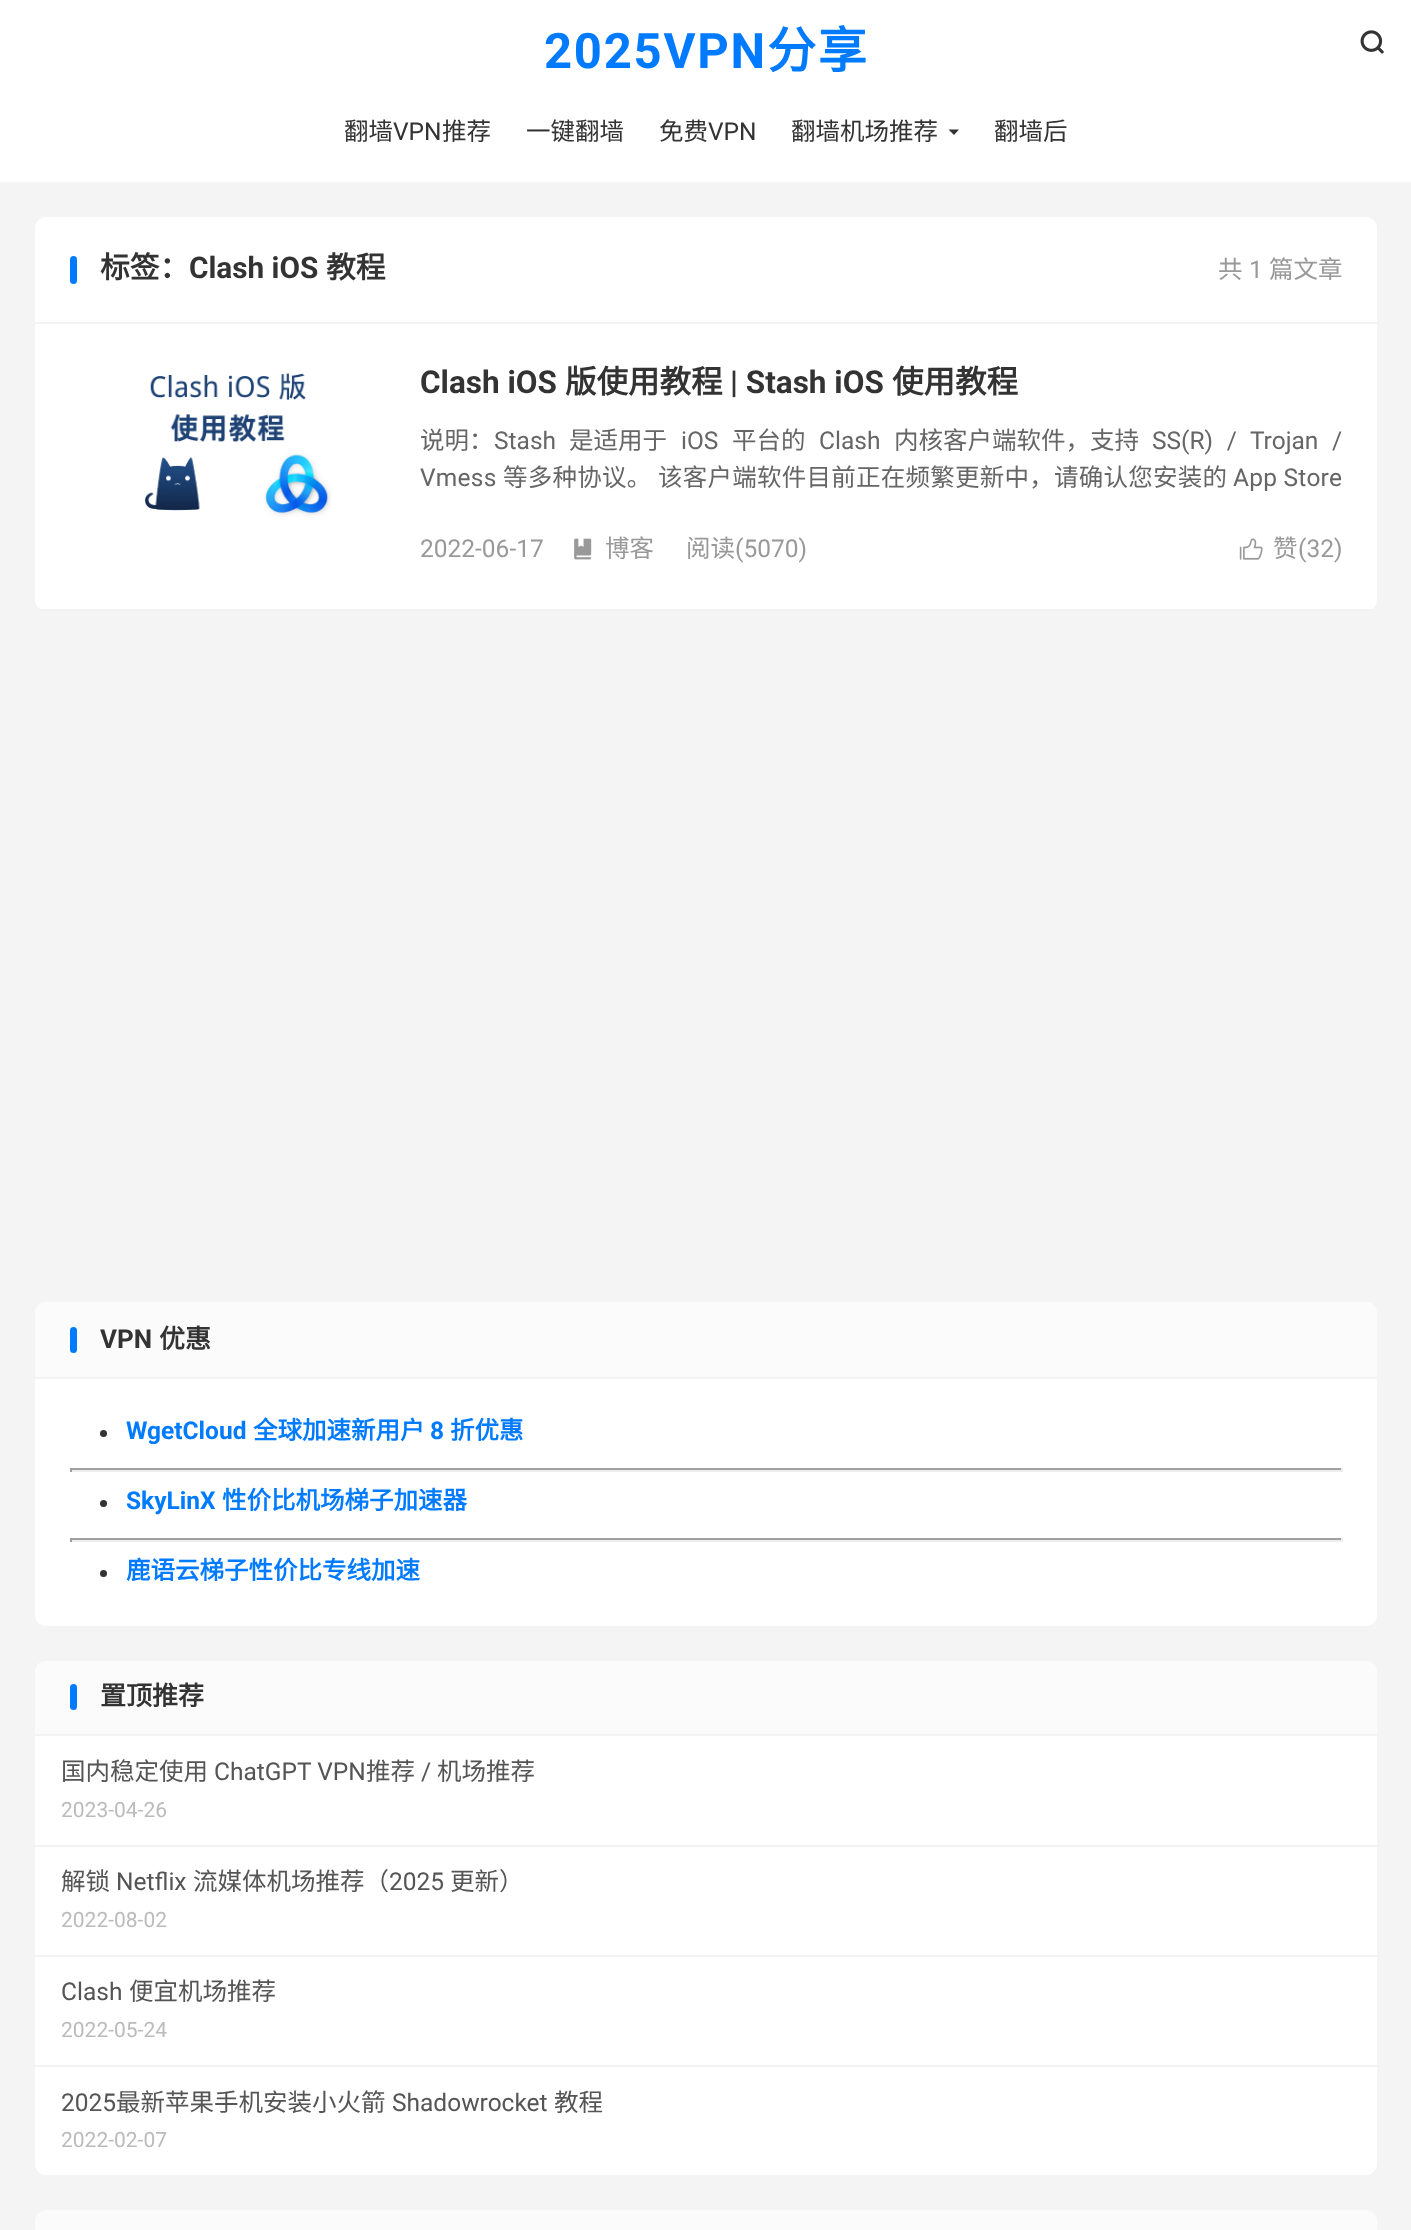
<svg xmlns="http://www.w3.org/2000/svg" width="1411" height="2230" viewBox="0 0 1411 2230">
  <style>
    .t1 { font: bold 49px Roboto; letter-spacing: 1.75px; fill: #007bff; }
    .t2 { font: bold 49px Noto Sans CJK SC; letter-spacing: 1.75px; fill: #007bff; }
    .t3 { font: 24.5px Noto Sans CJK SC; fill: #333; }
    .t4 { font: 24.5px Roboto; fill: #333; }
    .t5 { font: bold 29.75px Noto Sans CJK SC; fill: #333; }
    .t6 { font: bold 29.75px Roboto; fill: #333; }
    .t7 { font: 24.5px Noto Sans CJK SC; fill: #999; }
    .t8 { font: 24.5px Roboto; fill: #999; }
    .t9 { font: bold 31.5px Roboto; fill: #333; }
    .t10 { font: bold 31.5px Noto Sans CJK SC; fill: #333; }
    .t11 { font: 24.5px Noto Sans CJK SC; fill: #666; }
    .t12 { font: 24.5px Roboto; fill: #666; }
    .t13 { font: 24.5px Roboto; letter-spacing: 0.25px; fill: #666; }
    .t14 { font: 24.5px Noto Sans CJK SC; letter-spacing: 0.25px; fill: #666; }
    .t15 { font: bold 26px Roboto; fill: #333; }
    .t16 { font: bold 26px Noto Sans CJK SC; fill: #333; }
    .t17 { font: bold 24.5px Roboto; fill: #007bff; }
    .t18 { font: bold 24.5px Noto Sans CJK SC; fill: #007bff; }
    .t19 { font: 24.5px Noto Sans CJK SC; fill: #555; }
    .t20 { font: 24.5px Roboto; fill: #555; }
    .t21 { font: 21px Roboto; fill: #bbb; }
  </style>
  <rect width="100%" height="100%" fill="#f4f4f4"/>
  <rect x="0" y="0" width="1411" height="182" fill="#fff"/>
  <text x="544" y="68" class="t1">2025VPN</text>
  <text x="767" y="68" class="t2">分享</text>
  <image x="1360" y="30" width="24" height="24" href="images/1.png"/>
  <text x="344" y="140" class="t3">翻墙</text>
  <text x="393" y="140" class="t4">VPN</text>
  <text x="442" y="140" class="t3">推荐</text>
  <text x="526" y="140" class="t3">一键翻墙</text>
  <text x="659" y="140" class="t3">免费</text>
  <text x="708" y="140" class="t4">VPN</text>
  <text x="791" y="140" class="t3">翻墙机场推荐</text>
  <path d="M948.5 129.5H959L954 135Z" fill="#333"/>
  <text x="994" y="140" class="t3">翻墙后</text>
  <path d="M46 217H1366C1372 217 1377 222 1377 228V324H35V228C35 222 40 217 46 217Z" fill="#fff"/>
  <rect x="35" y="322" width="1342" height="2" fill="#f3f3f3"/>
  <rect x="70" y="256" width="7" height="28" rx="3.5" fill="#007bff"/>
  <text x="100" y="278" class="t5">标签：</text>
  <text x="189" y="278" class="t6">Clash iOS</text>
  <text x="326" y="278" class="t5">教程</text>
  <text x="1218" y="278" class="t7">共</text>
  <text x="1249" y="278" class="t8">1</text>
  <text x="1269" y="278" class="t7">篇文章</text>
  <path d="M35 324H1377V600C1377 606 1372 611 1366 611H46C40 611 35 606 35 600Z" fill="#fff"/>
  <rect x="40" y="609" width="1332" height="2" fill="#f3f3f3"/>
  <image x="145" y="373" width="187" height="144" href="images/2.png"/>
  <text x="420" y="393" class="t9">Clash iOS</text>
  <text x="565" y="393" class="t10">版使用教程</text>
  <text x="730" y="393" class="t9">| Stash iOS</text>
  <text x="892" y="393" class="t10">使用教程</text>
  <text x="420" y="449" class="t11">说明：</text>
  <text x="494" y="449" class="t12">Stash</text>
  <text x="569" y="449" class="t11">是适用于</text>
  <text x="681" y="449" class="t12">iOS</text>
  <text x="732" y="449" class="t11">平台的</text>
  <text x="819" y="449" class="t12">Clash</text>
  <text x="894" y="449" class="t11">内核客户端软件，支持</text>
  <text x="1152" y="449" word-spacing="7.5" class="t12">SS(R) / Trojan /</text>
  <text x="420" y="486" class="t13">Vmess</text>
  <text x="503" y="486" class="t14">等多种协议。</text>
  <text x="658" y="486" class="t14">该客户端软件目前正在频繁更新中，请确认您安装的</text>
  <text x="1233" y="486" class="t13">App Store</text>
  <text x="420" y="557" class="t8">2022-06-17</text>
  <image x="574" y="538" width="18" height="22" href="images/3.png"/>
  <text x="605" y="557" class="t7">博客</text>
  <text x="686" y="557" class="t7">阅读</text>
  <text x="735" y="557" class="t8">(5070)</text>
  <image x="1239" y="538" width="24" height="22" href="images/4.png"/>
  <text x="1273" y="557" class="t7">赞</text>
  <text x="1298" y="557" class="t8">(32)</text>
  <rect x="35" y="1302" width="1342" height="324" rx="11" fill="#fff"/>
  <path d="M46 1302H1366C1372 1302 1377 1307 1377 1313V1379H35V1313C35 1307 40 1302 46 1302Z" fill="#fbfbfb"/>
  <rect x="35" y="1377" width="1342" height="2" fill="#f3f3f3"/>
  <rect x="70" y="1327" width="7" height="26" rx="3.5" fill="#007bff"/>
  <text x="100" y="1348" class="t15">VPN</text>
  <text x="159" y="1348" class="t16">优惠</text>
  <circle cx="103.5" cy="1433.5" r="3.5" fill="#333"/>
  <text x="126" y="1439" class="t17">WgetCloud</text>
  <text x="253" y="1439" class="t18">全球加速新用户</text>
  <text x="430" y="1439" class="t17">8</text>
  <text x="450" y="1439" class="t18">折优惠</text>
  <rect x="70" y="1468" width="1272" height="2" fill="#9f9f9f"/>
  <rect x="1341" y="1468" width="2" height="4" fill="#eee"/>
  <rect x="70" y="1470" width="1272" height="2" fill="#eee"/>
  <rect x="70" y="1468" width="2" height="4" fill="#9f9f9f"/>
  <circle cx="103.5" cy="1503.5" r="3.5" fill="#333"/>
  <text x="126" y="1509" class="t17">SkyLinX</text>
  <text x="222" y="1509" class="t18">性价比机场梯子加速器</text>
  <rect x="70" y="1538" width="1272" height="2" fill="#9f9f9f"/>
  <rect x="1341" y="1538" width="2" height="4" fill="#eee"/>
  <rect x="70" y="1540" width="1272" height="2" fill="#eee"/>
  <rect x="70" y="1538" width="2" height="4" fill="#9f9f9f"/>
  <circle cx="103.5" cy="1573.5" r="3.5" fill="#333"/>
  <text x="126" y="1579" class="t18">鹿语云梯子性价比专线加速</text>
  <rect x="35" y="1661" width="1342" height="514" rx="11" fill="#fff"/>
  <path d="M46 1661H1366C1372 1661 1377 1666 1377 1672V1736H35V1672C35 1666 40 1661 46 1661Z" fill="#fbfbfb"/>
  <rect x="35" y="1734" width="1342" height="2" fill="#f3f3f3"/>
  <rect x="70" y="1684" width="7" height="26" rx="3.5" fill="#007bff"/>
  <text x="100" y="1705" class="t16">置顶推荐</text>
  <rect x="35" y="1845" width="1342" height="2" fill="#f3f3f3"/>
  <text x="61" y="1780" class="t19">国内稳定使用</text>
  <text x="214" y="1780" class="t20">ChatGPT VPN</text>
  <text x="366" y="1780" class="t19">推荐</text>
  <text x="421" y="1780" class="t20">/</text>
  <text x="437" y="1780" class="t19">机场推荐</text>
  <text x="61" y="1817" class="t21">2023-04-26</text>
  <rect x="35" y="1955" width="1342" height="2" fill="#f3f3f3"/>
  <text x="61" y="1890" class="t19">解锁</text>
  <text x="116" y="1890" class="t20">Netflix</text>
  <text x="193" y="1890" class="t19">流媒体机场推荐（</text>
  <text x="389" y="1890" class="t20">2025</text>
  <text x="450" y="1890" class="t19">更新）</text>
  <text x="61" y="1927" class="t21">2022-08-02</text>
  <rect x="35" y="2065" width="1342" height="2" fill="#f3f3f3"/>
  <text x="61" y="2000" class="t20">Clash</text>
  <text x="129" y="2000" class="t19">便宜机场推荐</text>
  <text x="61" y="2037" class="t21">2022-05-24</text>
  <text x="61" y="2111" class="t20">2025</text>
  <text x="116" y="2111" class="t19">最新苹果手机安装小火箭</text>
  <text x="392" y="2111" class="t20">Shadowrocket</text>
  <text x="554" y="2111" class="t19">教程</text>
  <text x="61" y="2147" class="t21">2022-02-07</text>
  <path d="M46 2210H1366C1372 2210 1377 2215 1377 2221V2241H35V2221C35 2215 40 2210 46 2210Z" fill="#fbfbfb"/>
</svg>
